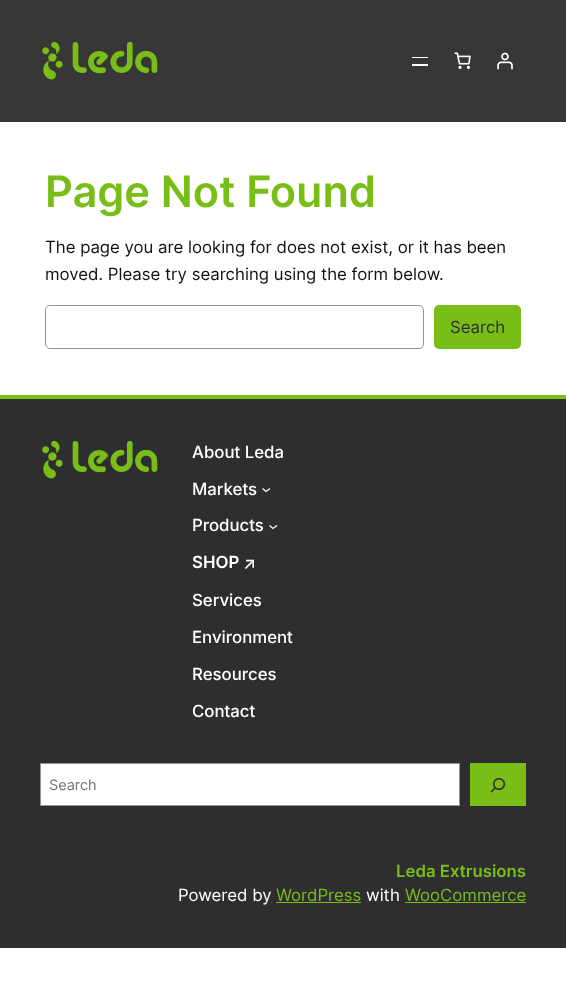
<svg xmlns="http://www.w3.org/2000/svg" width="566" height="994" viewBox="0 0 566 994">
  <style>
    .t1 { font: 600 43.25px Inter; fill: #78be16; }
    .t2 { font: 16.8px Inter; fill: #121111; }
    .t3 { font: 16.8px Inter; fill: #2e2e30; }
    .t4 { font: 500 16.8px Inter; fill: #fff; }
    .t5 { font: 600 16.8px Inter; fill: #fff; }
    .t6 { font: 14.5px Inter; fill: #757575; }
    .t7 { font: 600 16.8px Inter; fill: #78be16; }
    .t8 { font: 16.8px Inter; fill: #fff; }
    .t9 { font: 16.8px Inter; fill: #78be16; }
  </style>
  <rect width="100%" height="100%" fill="#fff"/>
  <rect x="0" y="0" width="566" height="122" fill="#373737"/>
  <image x="42" y="41" width="116" height="39" href="images/1.png"/>
  <rect x="412" y="57" width="16" height="1" fill="#fff"/>
  <rect x="412" y="64" width="16" height="2" fill="#fff"/>
  <image x="454" y="52" width="17" height="17" href="images/2.png"/>
  <image x="497" y="52" width="16" height="18" href="images/3.png"/>
  <text x="45" y="207" class="t1">Page Not Found</text>
  <text x="45" y="253" class="t2">The page you are looking for does not exist, or it has been</text>
  <text x="45" y="280" class="t2">moved. Please try searching using the form below.</text>
  <rect x="45.5" y="305.5" width="378" height="43" rx="4.5" fill="none" stroke="#949494"/>
  <rect x="434" y="305" width="87" height="44" rx="5" fill="#78be16"/>
  <text x="450" y="333" class="t3">Search</text>
  <rect x="0" y="399" width="566" height="549" fill="#2e2e30"/>
  <rect x="0" y="395" width="566" height="4" fill="#78be16"/>
  <image x="42" y="440" width="116" height="39" href="images/4.png"/>
  <text x="192" y="458" class="t4">About Leda</text>
  <text x="192" y="495" class="t4">Markets</text>
  <path d="M262.5 488.5L266 491.5L270 488.5M269.5 525.5L273 528.5L277 525.5" fill="none" stroke="#fff" stroke-width="1.3"/>
  <text x="192" y="531" class="t4">Products</text>
  <text x="192" y="568" class="t5">SHOP</text>
  <text x="243" y="569" class="t4">↗</text>
  <text x="192" y="606" class="t4">Services</text>
  <text x="192" y="643" class="t4">Environment</text>
  <text x="192" y="680" class="t4">Resources</text>
  <text x="192" y="717" class="t4">Contact</text>
  <rect x="40.5" y="763.5" width="419" height="42" fill="#fff" stroke="#949494"/>
  <text x="49" y="790" class="t6">Search</text>
  <rect x="470" y="763" width="56" height="43" fill="#78be16"/>
  <image x="490" y="778" width="16" height="15" href="images/5.png"/>
  <text x="396" y="877" class="t7">Leda Extrusions</text>
  <text x="178" y="901" class="t8">Powered by</text>
  <text x="276" y="901" class="t9">WordPress</text>
  <rect x="276" y="902" width="85" height="1" fill="#78be16"/>
  <text x="366" y="901" class="t8">with</text>
  <text x="405" y="901" class="t9">WooCommerce</text>
  <rect x="405" y="902" width="121" height="1" fill="#78be16"/>
</svg>
